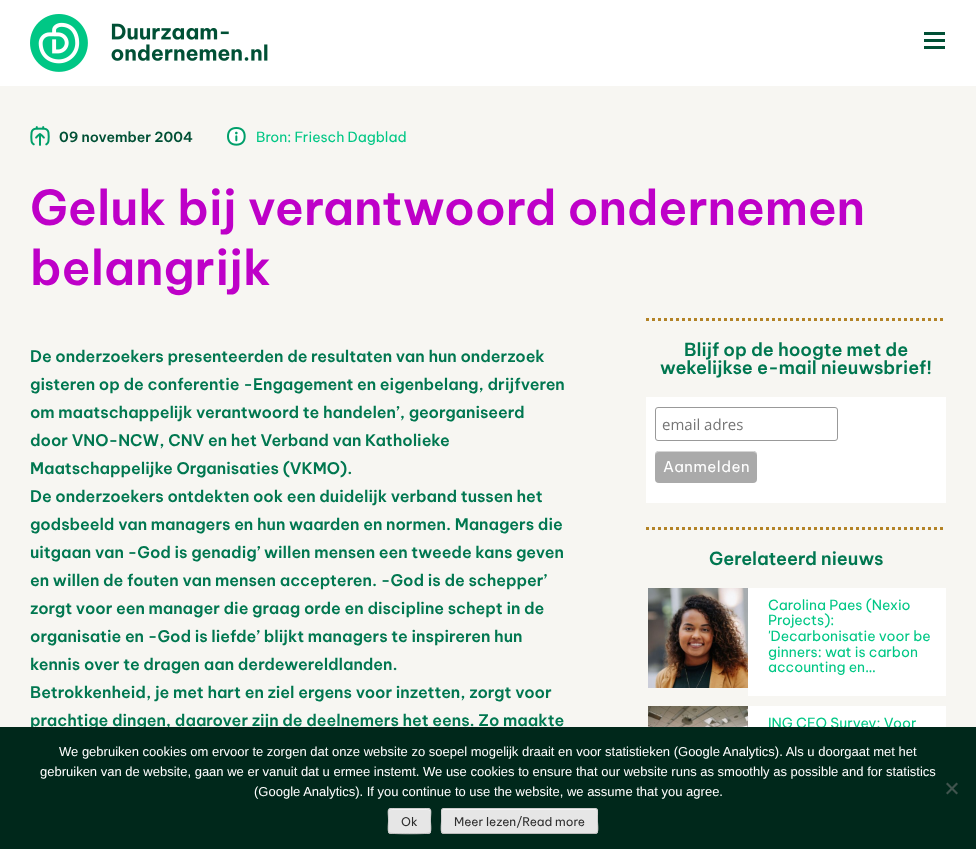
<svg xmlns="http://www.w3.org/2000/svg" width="976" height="849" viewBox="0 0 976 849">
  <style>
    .t1 { font: 600 14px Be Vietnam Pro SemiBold; fill: #005035; }
    .t2 { font: 14px Be Vietnam Pro; fill: #00c785; }
    .t3 { font: 600 48px Be Vietnam Pro SemiBold; fill: #be00c8; }
    .t4 { font: 600 16px Be Vietnam Pro SemiBold; fill: #007750; }
    .t5 { font: 600 18px Be Vietnam Pro SemiBold; fill: #007750; }
    .t6 { font: 15px Open Sans; fill: #757575; }
    .t7 { font: 15px Be Vietnam Pro; letter-spacing: 0.5px; fill: #fff; }
    .t8 { font: 13px Liberation Sans; fill: #fff; }
    .t9 { font: 12px Be Vietnam Pro; fill: #2e2e2e; }
  </style>
  <rect width="100%" height="100%" fill="#f7f6f2"/>
  <rect x="0" y="0" width="976" height="86" fill="#fff"/>
  <image x="30" y="14" width="238" height="58" href="images/1.png"/>
  <image x="924" y="32" width="21" height="17" href="images/2.png"/>
  <image x="30" y="126" width="20" height="20" href="images/3.png"/>
  <text x="59" y="142" class="t1">09 november 2004</text>
  <image x="227" y="127" width="19" height="19" href="images/4.png"/>
  <text x="256" y="142" class="t2">Bron: Friesch Dagblad</text>
  <text x="30" y="225" class="t3">Geluk bij verantwoord ondernemen</text>
  <text x="30" y="285" class="t3">belangrijk</text>
  <text x="30" y="362" class="t4">De onderzoekers presenteerden de resultaten van hun onderzoek</text>
  <text x="30" y="390" class="t4">gisteren op de conferentie -Engagement en eigenbelang, drijfveren</text>
  <text x="30" y="418" class="t4">om maatschappelijk verantwoord te handelen’, georganiseerd</text>
  <text x="30" y="446" class="t4">door VNO-NCW, CNV en het Verband van Katholieke</text>
  <text x="30" y="474" class="t4">Maatschappelijke Organisaties (VKMO).</text>
  <text x="30" y="502" class="t4">De onderzoekers ontdekten ook een duidelijk verband tussen het</text>
  <text x="30" y="530" class="t4">godsbeeld van managers en hun waarden en normen. Managers die</text>
  <text x="30" y="558" class="t4">uitgaan van -God is genadig’ willen mensen een tweede kans geven</text>
  <text x="30" y="586" class="t4">en willen de fouten van mensen accepteren. -God is de schepper’</text>
  <text x="30" y="614" class="t4">zorgt voor een manager die graag orde en discipline schept in de</text>
  <text x="30" y="642" class="t4">organisatie en -God is liefde’ blijkt managers te inspireren hun</text>
  <text x="30" y="670" class="t4">kennis over te dragen aan derdewereldlanden.</text>
  <text x="30" y="698" class="t4">Betrokkenheid, je met hart en ziel ergens voor inzetten, zorgt voor</text>
  <text x="30" y="726" class="t4">prachtige dingen, daarover zijn de deelnemers het eens. Zo maakte</text>
  <path d="M646 319.5H946" fill="none" stroke="#b38327" stroke-width="3" stroke-dasharray="3 3"/>
  <text x="684" y="356" class="t5">Blijf op de hoogte met de</text>
  <text x="660" y="374" class="t5">wekelijkse e-mail nieuwsbrief!</text>
  <rect x="646" y="397" width="300" height="106" fill="#fff"/>
  <rect x="655.5" y="407.5" width="182" height="33" rx="2.5" fill="none" stroke="#999"/>
  <text x="662" y="430" class="t6">email adres</text>
  <rect x="655" y="451" width="102" height="32" rx="4" fill="#aaa"/>
  <path d="M659 452H753C755 452 757 454 757 456C757 447 741 451 737 451H675C671 451 655 447 655 456C655 454 657 452 659 452Z" fill="#ffffff80"/>
  <text x="663" y="472" class="t7">Aanmelden</text>
  <path d="M646 528.5H946" fill="none" stroke="#b38327" stroke-width="3" stroke-dasharray="3 3"/>
  <text x="709" y="565" class="t5">Gerelateerd nieuws</text>
  <rect x="748" y="588" width="198" height="108" fill="#fff"/>
  <image x="648" y="588" width="100" height="100" href="images/5.png"/>
  <text x="768" y="610" class="t2">Carolina Paes (Nexio</text>
  <text x="768" y="625" class="t2">Projects):</text>
  <text x="768" y="641" class="t2">'Decarbonisatie voor be</text>
  <text x="768" y="657" class="t2">ginners: wat is carbon</text>
  <text x="768" y="672" class="t2">accounting en…</text>
  <rect x="748" y="706" width="198" height="21" fill="#fff"/>
  <image x="648" y="706" width="100" height="21" href="images/6.png"/>
  <text x="768" y="728" class="t2">ING CEO Survey: Voor</text>
  <rect x="0" y="727" width="976" height="122" fill="#00281b"/>
  <text x="59" y="756" class="t8">We gebruiken cookies om ervoor te zorgen dat onze website zo soepel mogelijk draait en voor statistieken (Google Analytics). Als u doorgaat met het</text>
  <text x="40" y="776" class="t8">gebruiken van de website, gaan we er vanuit dat u ermee instemt. We use cookies to ensure that our website runs as smoothly as possible and for statistics</text>
  <text x="254" y="796" class="t8">(Google Analytics). If you continue to use the website, we assume that you agree.</text>
  <path d="M956.5 782.5L958 784L947.5 794.5L946 793Z" fill="#40544e"/>
  <path d="M946 784L947.5 782.5L958 793L956.5 794.5Z" fill="#40544e"/>
  <rect x="388" y="808" width="43" height="26" rx="3" fill="#e6e6e6"/>
  <path d="M391 810H428C429 810 430 811 430 812C430 807 426 809 422 809H397C393 809 389 807 389 812C389 811 390 810 391 810Z" fill="#f3f3f3"/>
  <path d="M430 833C428.5 834 390.5 834 389 833" fill="none" stroke="#bbb"/>
  <path d="M389 833C387.5 831 388.5 823.5 388.5 821C388.5 808.5 385.5 808.5 397 808.5H422C433.5 808.5 430.5 808.5 430.5 821C430.5 823.5 431.5 831 430 833" fill="none" stroke="#ccc"/>
  <text x="401" y="826" class="t9">Ok</text>
  <rect x="441" y="808" width="157" height="26" rx="3" fill="#e6e6e6"/>
  <path d="M444 810H595C596 810 597 811 597 812C597 811 597 809 595 809H443C442 810 442 811 442 812C442 811 443 810 444 810Z" fill="#f3f3f3"/>
  <path d="M597 833L595 833.5H444L442 833" fill="none" stroke="#bbb"/>
  <path d="M442 833C440.5 831 441.5 823.5 441.5 821V814.5C441.5 812.5 441 808.5 444 808.5H595C598 808.5 597.5 812.5 597.5 814.5V821C597.5 823.5 598.5 831 597 833" fill="none" stroke="#ccc"/>
  <text x="454" y="826" class="t9">Meer lezen/Read more</text>
</svg>
